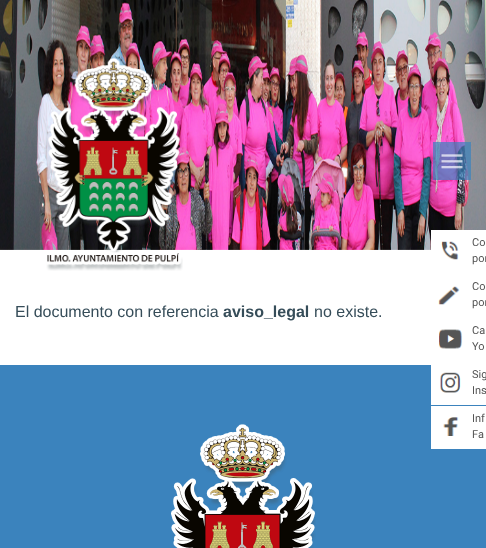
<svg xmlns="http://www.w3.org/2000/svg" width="486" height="548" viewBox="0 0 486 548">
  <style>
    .t1 { font: 16px Liberation Sans; fill: #364d59; }
    .t2 { font: bold 16px Liberation Sans; fill: #364d59; }
    .t3 { font: 11px Roboto; fill: #555; }
  </style>
  <rect width="100%" height="100%" fill="#fff"/>
  <image x="0" y="0" width="486" height="250" href="images/1.png"/>
  <image x="46" y="58" width="137" height="213" href="images/2.png"/>
  <rect x="433" y="142" width="38" height="38" fill="#3b83bdb3"/>
  <image x="441" y="154" width="22" height="15" href="images/3.png"/>
  <text x="15" y="317" class="t1">El documento con referencia</text>
  <text x="223" y="317" class="t2">aviso_legal</text>
  <text x="314" y="317" class="t1">no existe.</text>
  <rect x="0" y="365" width="486" height="183" fill="#3b83bd"/>
  <image x="171" y="424" width="145" height="124" href="images/4.png"/>
  <rect x="431" y="230" width="55" height="20" fill="#fff"/>
  <image x="441" y="241" width="18" height="19" href="images/5.png"/>
  <text x="472" y="246" class="t3">Co</text>
  <text x="472" y="262" class="t3">por</text>
  <image x="438" y="286" width="22" height="19" href="images/6.png"/>
  <text x="472" y="290" class="t3">Co</text>
  <text x="472" y="306" class="t3">por</text>
  <image x="439" y="329" width="24" height="20" href="images/7.png"/>
  <text x="472" y="334" class="t3">Ca</text>
  <text x="472" y="350" class="t3">Yo</text>
  <rect x="431" y="365" width="55" height="40" fill="#fff"/>
  <image x="440" y="372" width="21" height="21" href="images/8.png"/>
  <text x="472" y="378" class="t3">Sig</text>
  <text x="472" y="394" class="t3">Ins</text>
  <rect x="431" y="406" width="55" height="43" fill="#fff"/>
  <image x="443" y="417" width="16" height="19" href="images/9.png"/>
  <text x="472" y="422" class="t3">Inf</text>
  <text x="472" y="438" class="t3">Fa</text>
</svg>
